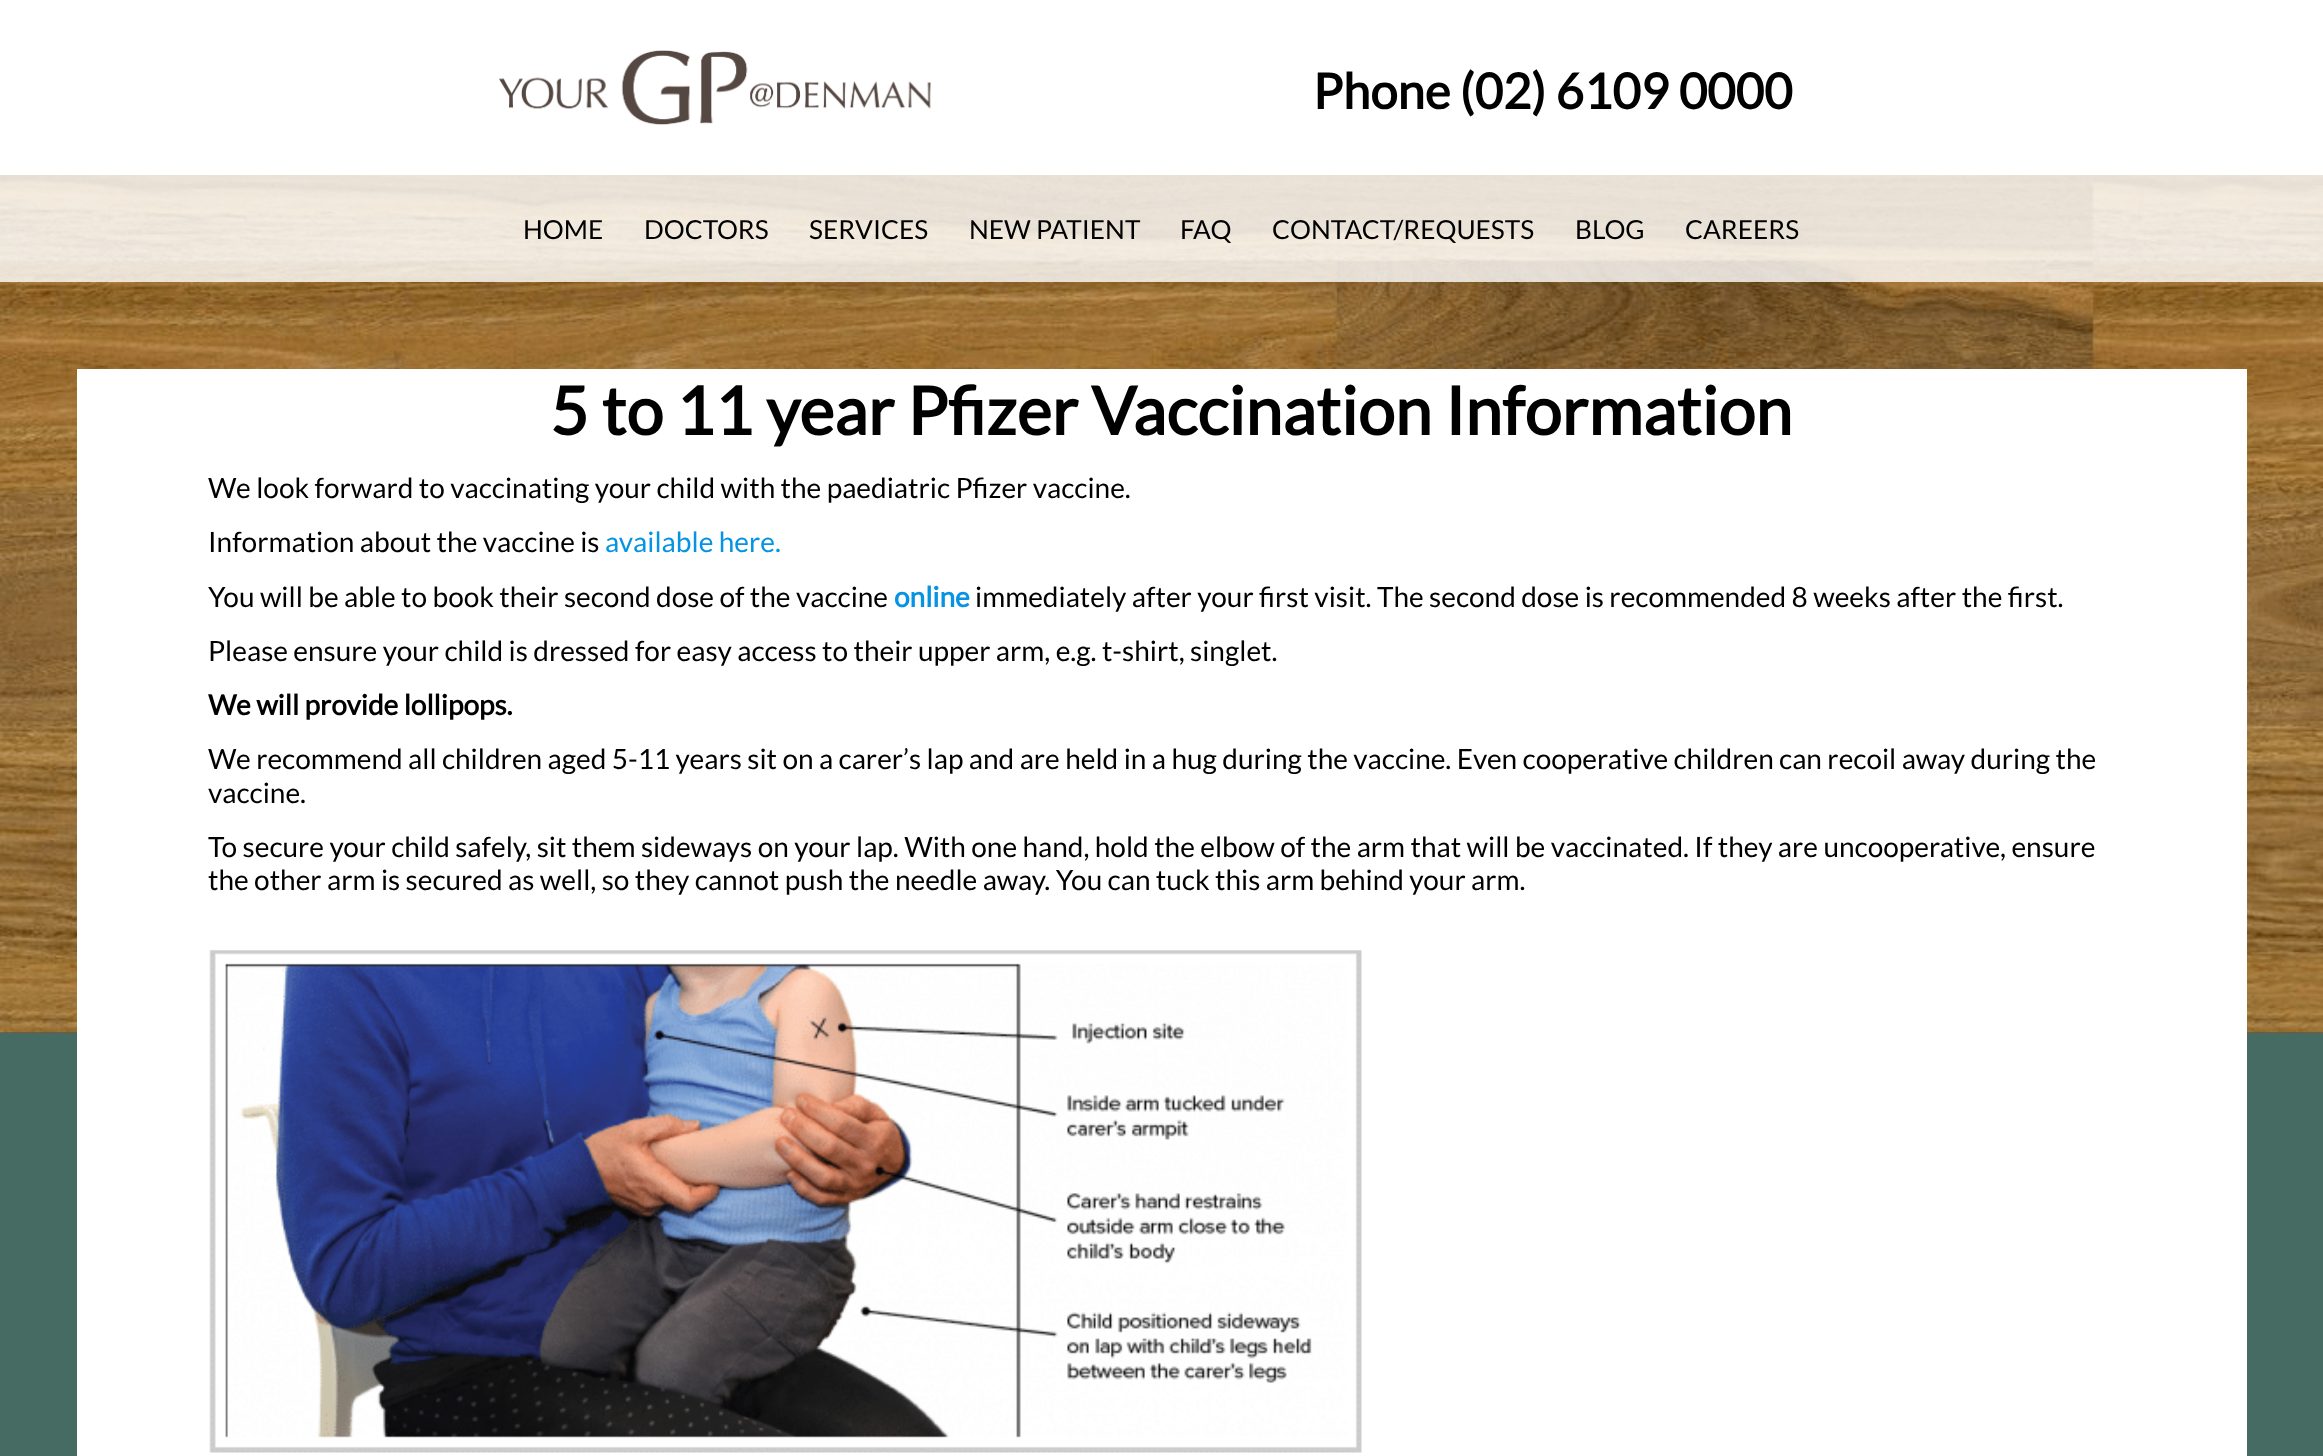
<svg xmlns="http://www.w3.org/2000/svg" width="2323" height="1456" viewBox="0 0 2323 1456">
  <style>
    .t1 { font: bold 49px Lato; fill: #000; }
    .t2 { font: 26.25px Lato; fill: #000; }
    .t3 { font: bold 66.5px Lato; fill: #000; }
    .t4 { font: 28px Lato; fill: #000; }
    .t5 { font: 28px Lato; fill: #0693e3; }
    .t6 { font: bold 28px Lato; fill: #0693e3; }
    .t7 { font: bold 28px Lato; fill: #000; }
  </style>
  <rect width="100%" height="100%" fill="#456b63"/>
  <rect x="0" y="0" width="2323" height="175" fill="#fff"/>
  <image x="499" y="50" width="432" height="75" href="images/1.png"/>
  <text x="1313" y="109" class="t1">Phone (02) 6109 0000</text>
  <rect x="0" y="1032" width="2323" height="1" fill="#554741"/>
  <image x="0" y="175" width="2323" height="858" href="images/2.png"/>
  <rect x="0" y="175" width="2323" height="107" fill="#ffffffcc"/>
  <text x="523" y="239" class="t2">HOME</text>
  <text x="644" y="239" class="t2">DOCTORS</text>
  <text x="809" y="239" class="t2">SERVICES</text>
  <text x="969" y="239" class="t2">NEW PATIENT</text>
  <text x="1180" y="239" class="t2">FAQ</text>
  <text x="1272" y="239" class="t2">CONTACT/REQUESTS</text>
  <text x="1575" y="239" class="t2">BLOG</text>
  <text x="1685" y="239" class="t2">CAREERS</text>
  <rect x="77" y="369" width="2170" height="1087" fill="#fff"/>
  <text x="550" y="435" class="t3">5 to 11 year Pfizer Vaccination Information</text>
  <text x="208" y="498" class="t4">We look forward to vaccinating your child with the paediatric Pfizer vaccine.</text>
  <text x="208" y="552" class="t4">Information about the vaccine is</text>
  <text x="605" y="552" class="t5">available here.</text>
  <text x="208" y="607" class="t4">You will be able to book their second dose of the vaccine</text>
  <text x="894" y="607" class="t6">online</text>
  <text x="975" y="607" class="t4">immediately after your first visit. The second dose is recommended 8 weeks after the first.</text>
  <text x="208" y="661" class="t4">Please ensure your child is dressed for easy access to their upper arm, e.g. t-shirt, singlet.</text>
  <text x="208" y="715" class="t7">We will provide lollipops.</text>
  <text x="208" y="769" class="t4">We recommend all children aged 5-11 years sit on a carer’s lap and are held in a hug during the vaccine. Even cooperative children can recoil away during the</text>
  <text x="208" y="803" class="t4">vaccine.</text>
  <text x="208" y="857" class="t4">To secure your child safely, sit them sideways on your lap. With one hand, hold the elbow of the arm that will be vaccinated. If they are uncooperative, ensure</text>
  <text x="208" y="890" class="t4">the other arm is secured as well, so they cannot push the needle away. You can tuck this arm behind your arm.</text>
  <image x="209" y="950" width="1153" height="503" href="images/3.png"/>
</svg>
